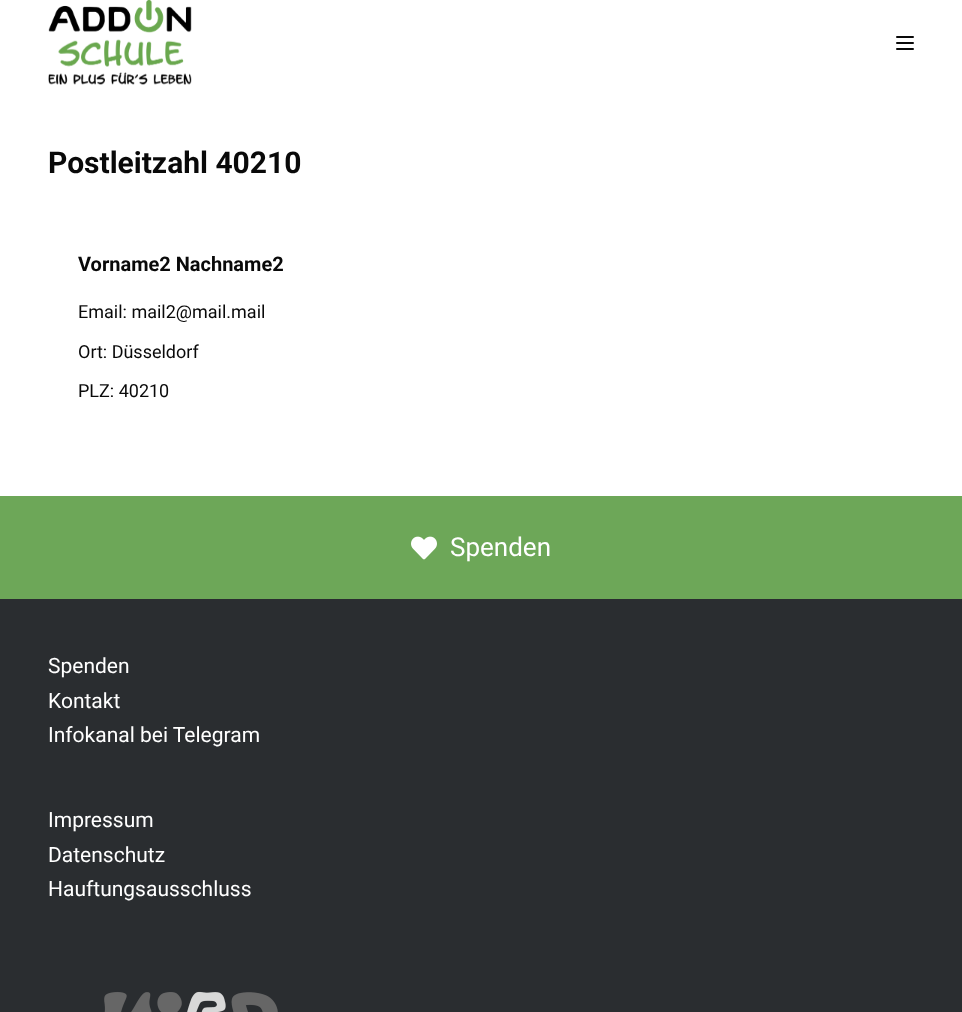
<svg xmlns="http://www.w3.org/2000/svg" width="962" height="1012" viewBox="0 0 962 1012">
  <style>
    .t1 { font: bold 30px Roboto; fill: #090909; }
    .t2 { font: bold 20px Roboto; fill: #090909; }
    .t3 { font: 18px Roboto; fill: #090909; }
    .t4 { font: 21px Roboto; fill: #fff; }
    .t5 { font: 26px Roboto; fill: #fff; }
  </style>
  <defs>
    <clipPath id="clip1"><rect x="0" y="496" width="962" height="103"/></clipPath>
  </defs>
  <rect width="100%" height="100%" fill="#fff"/>
  <text x="48" y="173" class="t1">Postleitzahl 40210</text>
  <text x="78" y="271" class="t2">Vorname2 Nachname2</text>
  <text x="78" y="318" class="t3">Email: mail2@mail.mail</text>
  <text x="78" y="358" class="t3">Ort: Düsseldorf</text>
  <text x="78" y="397" class="t3">PLZ: 40210</text>
  <rect x="0" y="599" width="962" height="413" fill="#2a2d30"/>
  <text x="48" y="673" class="t4">Spenden</text>
  <text x="48" y="708" class="t4">Kontakt</text>
  <text x="48" y="742" class="t4">Infokanal bei Telegram</text>
  <text x="48" y="827" class="t4">Impressum</text>
  <text x="48" y="862" class="t4">Datenschutz</text>
  <text x="48" y="896" class="t4">Hauftungsausschluss</text>
  <image x="104" y="991" width="174" height="21" href="images/3.png"/>
  <g clip-path="url(#clip1)">
    <rect x="-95" y="-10" width="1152" height="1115" fill="none" stroke="#6da758" stroke-width="1012"/>
  </g>
  <image x="48" y="0" width="144" height="85" href="images/1.png"/>
  <rect x="896" y="36" width="18" height="2" rx="1" fill="#090909"/>
  <rect x="896" y="42" width="18" height="2" rx="1" fill="#090909"/>
  <rect x="896" y="48" width="18" height="2" rx="1" fill="#090909"/>
  <rect x="411" y="496" width="140" height="103" fill="#6da758"/>
  <image x="411" y="536" width="26" height="24" href="images/2.png"/>
  <text x="450" y="556" class="t5">Spenden</text>
</svg>
